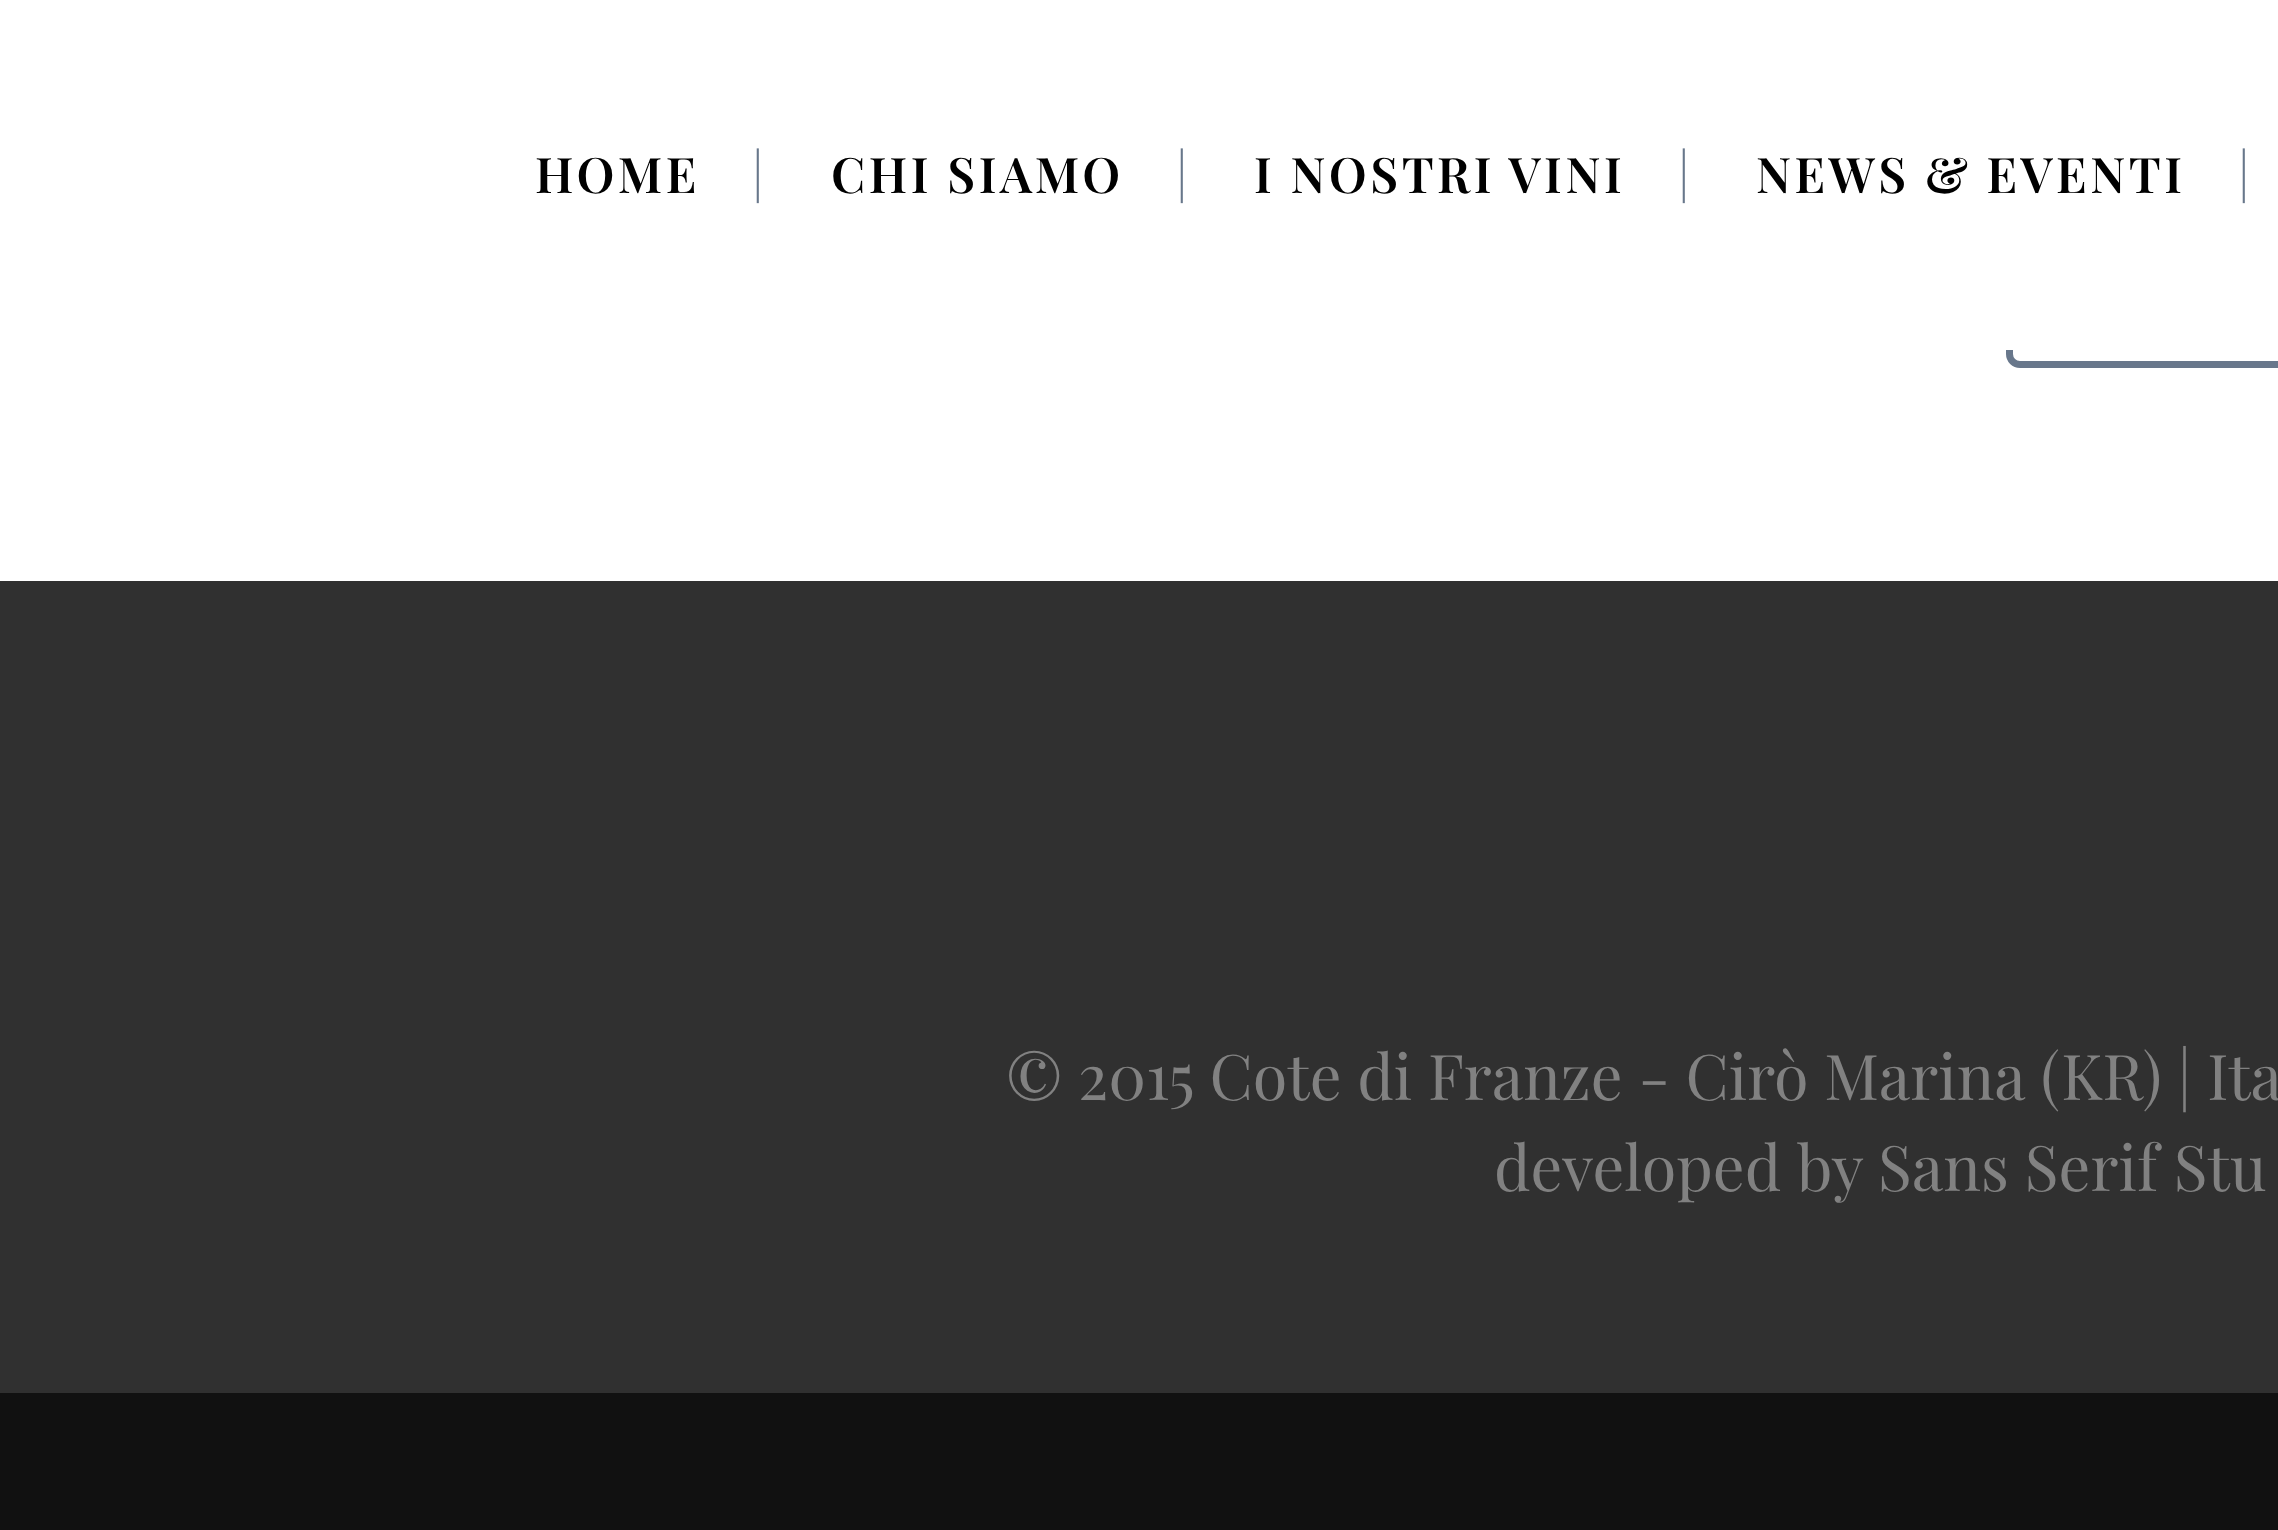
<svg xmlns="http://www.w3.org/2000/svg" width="2278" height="1530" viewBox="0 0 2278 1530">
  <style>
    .t1 { font: 600 49px Playfair Display; letter-spacing: 3.5px; fill: #000; }
    .t2 { font: 52px Playfair Display; fill: #68778b; }
    .t3 { font: 63px Playfair Display; fill: #818181; }
  </style>
  <rect width="100%" height="100%" fill="#fff"/>
  <rect x="2009.5" y="252.5" width="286" height="112" rx="10.5" fill="none" stroke="#68778b" stroke-width="7"/>
  <rect x="2006" y="249" width="272" height="101" fill="#fff"/>
  <text x="535" y="193" class="t1">HOME</text>
  <text x="752" y="193" class="t2">|</text>
  <text x="831" y="193" class="t1">CHI SIAMO</text>
  <text x="1176" y="193" class="t2">|</text>
  <text x="1254" y="193" class="t1">I NOSTRI VINI</text>
  <text x="1678" y="193" class="t2">|</text>
  <text x="1756" y="193" class="t1">NEWS &amp; EVENTI</text>
  <text x="2238" y="193" class="t2">|</text>
  <rect x="0" y="581" width="2278" height="812" fill="#303030"/>
  <text x="1006" y="1100" class="t3">© 2015 Cote di Franze - Cirò Marina (KR) | Ita</text>
  <text x="1494" y="1191" class="t3">developed by Sans Serif Stu</text>
  <rect x="0" y="1393" width="2278" height="137" fill="#111"/>
</svg>
